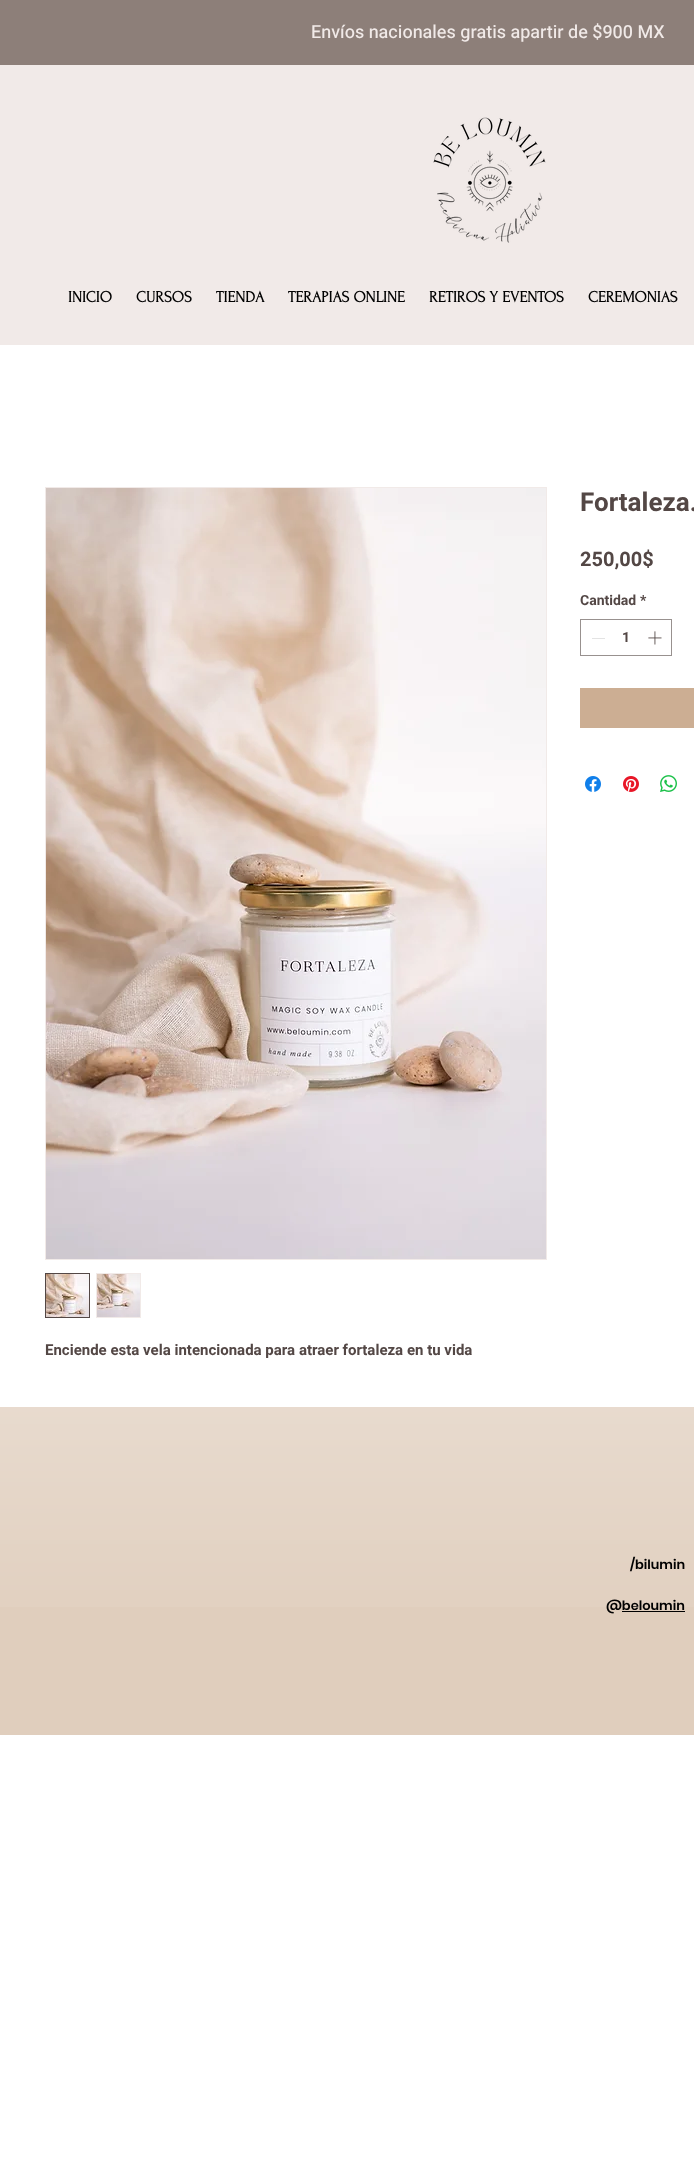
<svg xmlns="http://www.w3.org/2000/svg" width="694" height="2183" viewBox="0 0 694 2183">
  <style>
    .t1 { font: 500 18px Heebo; fill: #f1eae8; }
    .t2 { font: bold 16px Forum; fill: #000; }
    .t3 { font: bold 26px Roboto; fill: #534745; }
    .t4 { font: bold 20px Roboto; fill: #534745; }
    .t5 { font: bold 14px Roboto; fill: #534745; }
    .t6 { font: bold 15px Roboto; fill: #534745; }
    .t7 { font: 600 13px Poppins; fill: #000; }
  </style>
  <rect width="100%" height="100%" fill="#fff"/>
  <rect x="0" y="0" width="694" height="65" fill="#8d7f79"/>
  <text x="311" y="38" class="t1">Envíos nacionales gratis apartir de $900 MX</text>
  <rect x="0" y="65" width="694" height="280" fill="#f1eae8"/>
  <image x="433" y="117" width="113" height="126" href="images/1.png"/>
  <text x="68" y="302" class="t2">INICIO</text>
  <text x="136" y="302" class="t2">CURSOS</text>
  <text x="216" y="302" class="t2">TIENDA</text>
  <text x="288" y="302" class="t2">TERAPIAS ONLINE</text>
  <text x="429" y="302" class="t2">RETIROS Y EVENTOS</text>
  <text x="588" y="302" class="t2">CEREMONIAS</text>
  <text x="580" y="511" class="t3">Fortaleza.</text>
  <text x="580" y="566" class="t4">250,00$</text>
  <text x="580" y="605" class="t5">Cantidad</text>
  <text x="640" y="605" class="t5">*</text>
  <rect x="580.5" y="619.5" width="91" height="36" fill="none" stroke="#98918f"/>
  <rect x="592" y="638" width="13" height="1" fill="#e3e3e3"/>
  <text x="622" y="642" class="t5">1</text>
  <image x="648" y="631" width="14" height="14" href="images/2.png"/>
  <rect x="580" y="688" width="114" height="40" fill="#ccae93"/>
  <image x="585" y="776" width="16" height="16" href="images/3.png"/>
  <image x="623" y="776" width="16" height="16" href="images/4.png"/>
  <image x="660" y="775" width="17" height="17" href="images/5.png"/>
  <rect x="45.5" y="487.5" width="501" height="772" fill="none" stroke="#f1eae8"/>
  <image x="46" y="488" width="500" height="771" href="images/6.png"/>
  <rect x="45.5" y="1273.5" width="44" height="44" fill="none" stroke="#534745"/>
  <image x="46" y="1274" width="43" height="43" href="images/7.png"/>
  <rect x="96" y="1273" width="45" height="45" fill="#f1eae8"/>
  <image x="97" y="1274" width="43" height="43" href="images/8.png"/>
  <text x="45" y="1355" class="t6">Enciende esta vela intencionada para atraer fortaleza en tu vida</text>
  <rect x="0" y="1407" width="694" height="328" fill="#e0cebd"/>
  <image x="0" y="1407" width="694" height="200" href="images/9.png"/>
  <text x="630" y="1569" class="t7">/bilumin</text>
  <text x="606" y="1610" class="t7">@beloumin</text>
  <rect x="622" y="1611" width="63" height="1" fill="#000"/>
</svg>
